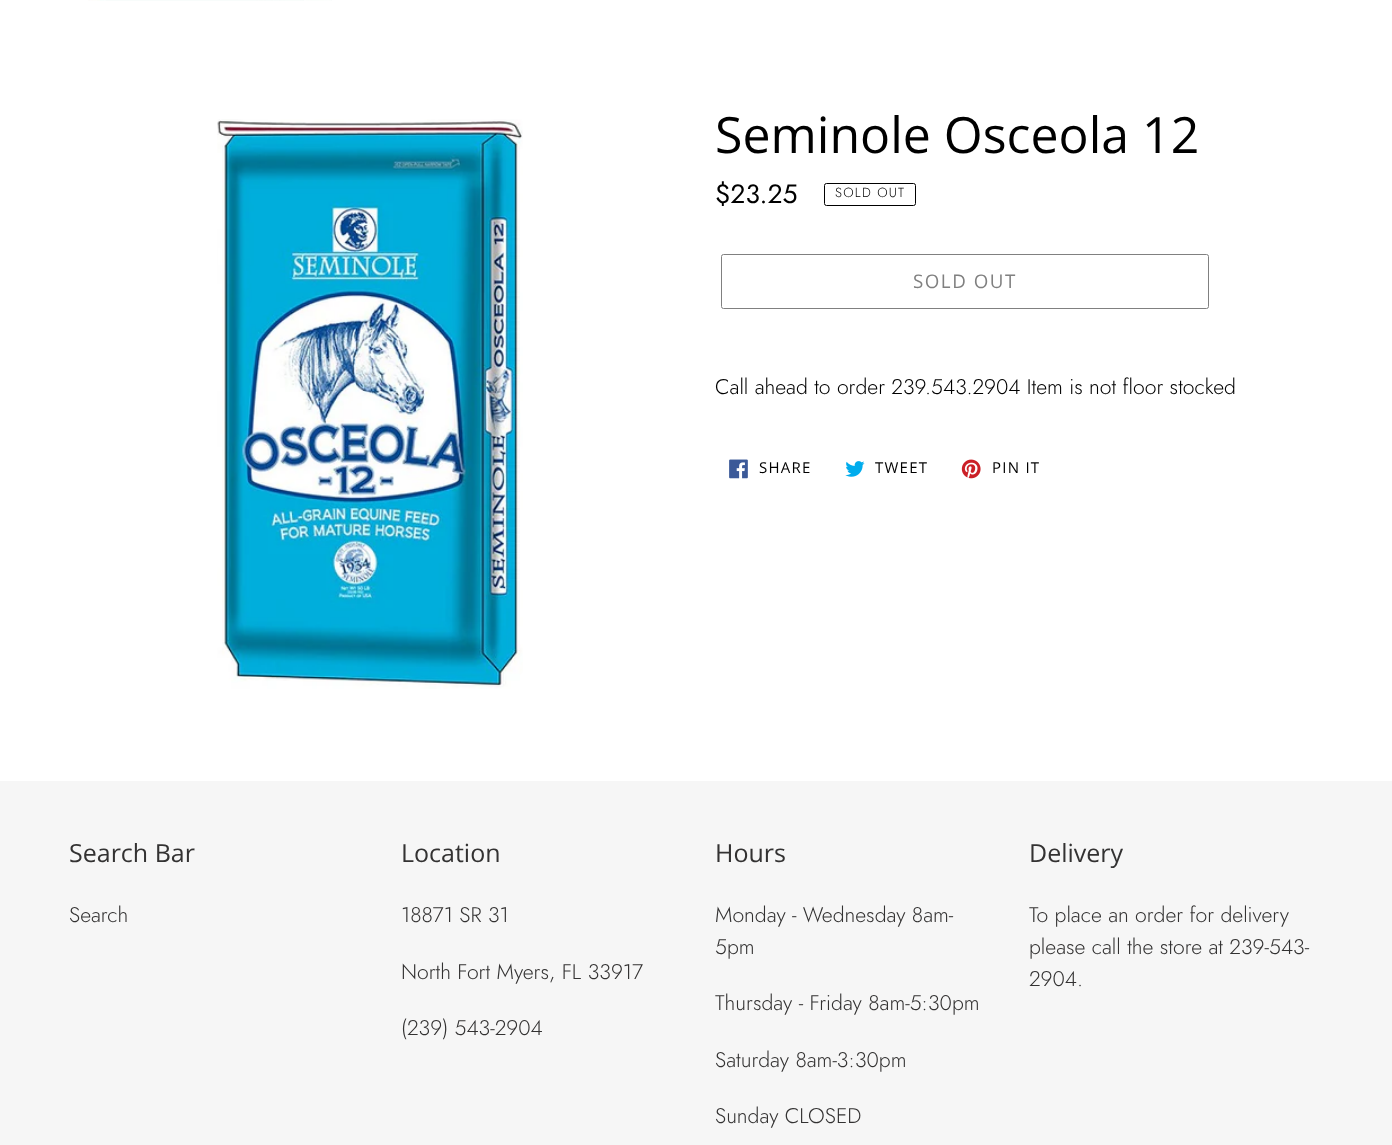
<svg xmlns="http://www.w3.org/2000/svg" width="1392" height="1145" viewBox="0 0 1392 1145">
  <style>
    .t1 { font: 50px Open Sans; fill: #000; }
    .t2 { font: 26.5px Jost; fill: #000; }
    .t3 { font: 300 13.25px Jost; letter-spacing: 1.25px; fill: #000; }
    .t4 { font: 18.75px Open Sans; letter-spacing: 1.5px; fill: #808080; }
    .t5 { font: 300 21.25px Jost; fill: #000; }
    .t6 { font: 15px Open Sans; letter-spacing: 1.25px; fill: #000; }
    .t7 { font: 25px Open Sans; fill: #333232; }
    .t8 { font: 300 21.25px Jost; fill: #333232; }
  </style>
  <rect width="100%" height="100%" fill="#fff"/>
  <image x="88" y="0" width="244" height="1" href="images/1.png"/>
  <image x="217" y="119" width="306" height="570" href="images/2.png"/>
  <text x="715" y="153" class="t1">Seminole Osceola 12</text>
  <text x="715" y="203" class="t2">$23.25</text>
  <rect x="824.5" y="183.5" width="91" height="22" rx="2" fill="none" stroke="#000"/>
  <text x="835" y="197" class="t3">SOLD OUT</text>
  <rect x="721.5" y="254.5" width="487" height="54" rx="2" fill="none" stroke="#808080"/>
  <text x="913" y="288" class="t4">SOLD OUT</text>
  <text x="715" y="394" class="t5">Call ahead to order 239.543.2904 Item is not floor stocked</text>
  <image x="729" y="459" width="19" height="20" href="images/3.png"/>
  <text x="759" y="473" class="t6">SHARE</text>
  <image x="845" y="461" width="20" height="16" href="images/4.png"/>
  <text x="875" y="473" class="t6">TWEET</text>
  <image x="961" y="459" width="20" height="20" href="images/5.png"/>
  <text x="992" y="473" class="t6">PIN IT</text>
  <rect x="0" y="781" width="1392" height="364" fill="#f6f6f6"/>
  <text x="69" y="862" class="t7">Search Bar</text>
  <text x="69" y="922" class="t8">Search</text>
  <text x="401" y="862" class="t7">Location</text>
  <text x="401" y="922" class="t8">18871 SR 31</text>
  <text x="401" y="979" class="t8">North Fort Myers, FL 33917</text>
  <text x="401" y="1035" class="t8">(239) 543-2904</text>
  <text x="715" y="862" class="t7">Hours</text>
  <text x="715" y="922" class="t8">Monday - Wednesday 8am-</text>
  <text x="715" y="954" class="t8">5pm</text>
  <text x="715" y="1010" class="t8">Thursday - Friday 8am-5:30pm</text>
  <text x="715" y="1067" class="t8">Saturday 8am-3:30pm</text>
  <text x="715" y="1123" class="t8">Sunday CLOSED</text>
  <text x="1029" y="862" class="t7">Delivery</text>
  <text x="1029" y="922" class="t8">To place an order for delivery</text>
  <text x="1029" y="954" class="t8">please call the store at 239-543-</text>
  <text x="1029" y="986" class="t8">2904.</text>
</svg>
